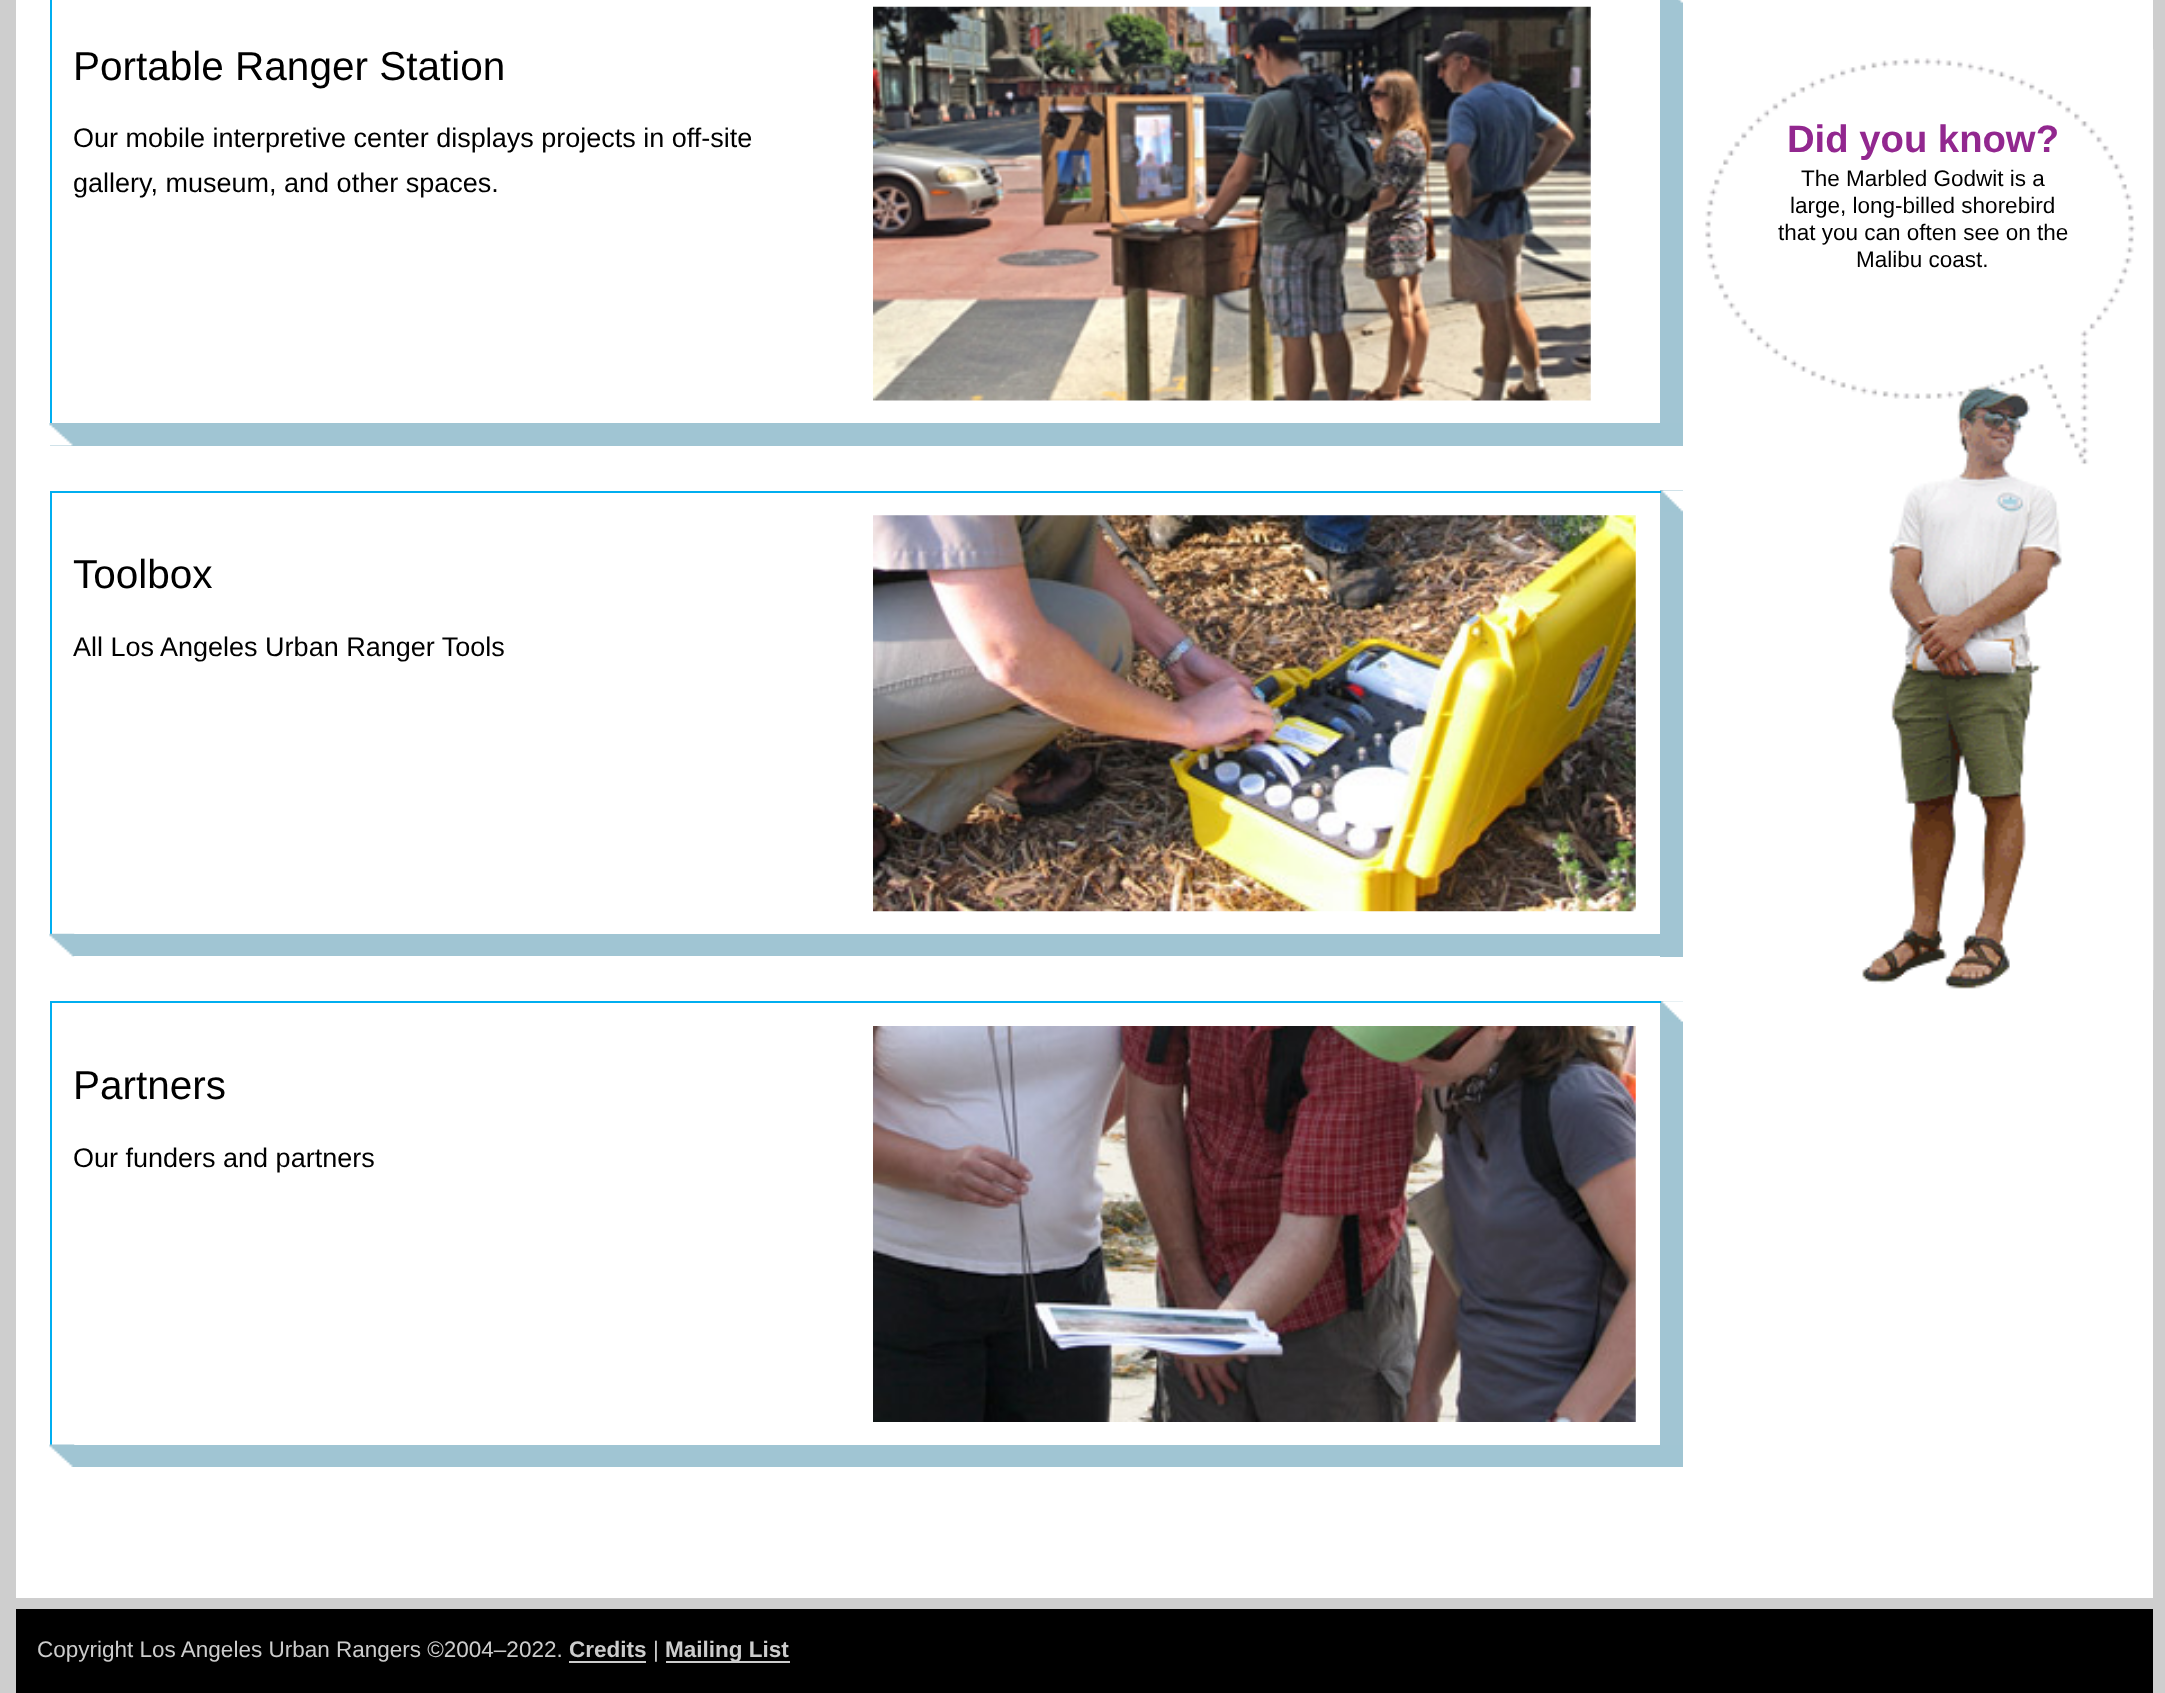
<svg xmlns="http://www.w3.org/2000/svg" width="2165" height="1693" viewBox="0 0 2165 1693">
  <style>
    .t1 { font: 40.5px Liberation Sans; fill: #000; }
    .t2 { font: 27px Liberation Sans; fill: #000; }
    .t3 { font: bold 38.25px Liberation Sans; fill: #92278f; }
    .t4 { font: 22.5px Liberation Sans; fill: #000; }
    .t5 { font: 22.5px Liberation Sans; fill: #ccc; }
    .t6 { font: bold 22.5px Liberation Sans; fill: #ccc; }
  </style>
  <rect width="100%" height="100%" fill="#cecece"/>
  <rect x="16" y="0" width="2137" height="1598" fill="#fff"/>
  <rect x="1660" y="0" width="23" height="423" fill="#a1c5d3"/>
  <image x="1678" y="0" width="5" height="3" href="images/1.png"/>
  <rect x="50" y="0" width="2" height="423" fill="#00aef0"/>
  <text x="73" y="80" class="t1">Portable Ranger Station</text>
  <text x="73" y="147" class="t2">Our mobile interpretive center displays projects in off-site</text>
  <text x="73" y="192" class="t2">gallery, museum, and other spaces.</text>
  <image x="873" y="6" width="718" height="395" href="images/2.png"/>
  <rect x="50" y="423" width="1633" height="23" fill="#a0c5d3"/>
  <image x="49" y="423" width="24" height="23" href="images/3.png"/>
  <rect x="1660" y="490" width="23" height="467" fill="#a1c5d3"/>
  <image x="1662" y="490" width="21" height="22" href="images/4.png"/>
  <rect x="50" y="491" width="1611" height="2" fill="#00aef0"/>
  <rect x="50" y="491" width="2" height="443" fill="#00aef0"/>
  <text x="73" y="588" class="t1">Toolbox</text>
  <text x="73" y="656" class="t2">All Los Angeles Urban Ranger Tools</text>
  <image x="873" y="515" width="763" height="397" href="images/5.png"/>
  <rect x="74" y="934" width="1586" height="22" fill="#a0c5d3"/>
  <image x="49" y="933" width="26" height="24" href="images/6.png"/>
  <rect x="1660" y="1001" width="23" height="444" fill="#a1c5d3"/>
  <image x="1662" y="1001" width="21" height="21" href="images/7.png"/>
  <rect x="50" y="1001" width="1611" height="2" fill="#00aef0"/>
  <rect x="50" y="1001" width="2" height="444" fill="#00aef0"/>
  <text x="73" y="1099" class="t1">Partners</text>
  <text x="73" y="1167" class="t2">Our funders and partners</text>
  <image x="873" y="1026" width="763" height="396" href="images/8.png"/>
  <rect x="74" y="1445" width="1609" height="22" fill="#a0c5d3"/>
  <image x="49" y="1444" width="26" height="23" href="images/9.png"/>
  <image x="1705" y="49" width="449" height="941" href="images/10.png"/>
  <text x="1787" y="152" class="t3">Did you know?</text>
  <text x="1801" y="186" class="t4">The Marbled Godwit is a</text>
  <text x="1790" y="213" class="t4">large, long-billed shorebird</text>
  <text x="1778" y="240" class="t4">that you can often see on the</text>
  <text x="1856" y="267" class="t4">Malibu coast.</text>
  <rect x="16" y="1609" width="2137" height="84" fill="#000"/>
  <text x="37" y="1657" class="t5">Copyright Los Angeles Urban Rangers ©2004–2022.</text>
  <text x="569" y="1657" class="t6">Credits</text>
  <rect x="569" y="1661" width="77" height="2" fill="#ccc"/>
  <text x="653" y="1657" class="t5">|</text>
  <rect x="666" y="1661" width="124" height="2" fill="#ccc"/>
  <text x="665" y="1657" class="t6">Mailing List</text>
</svg>
